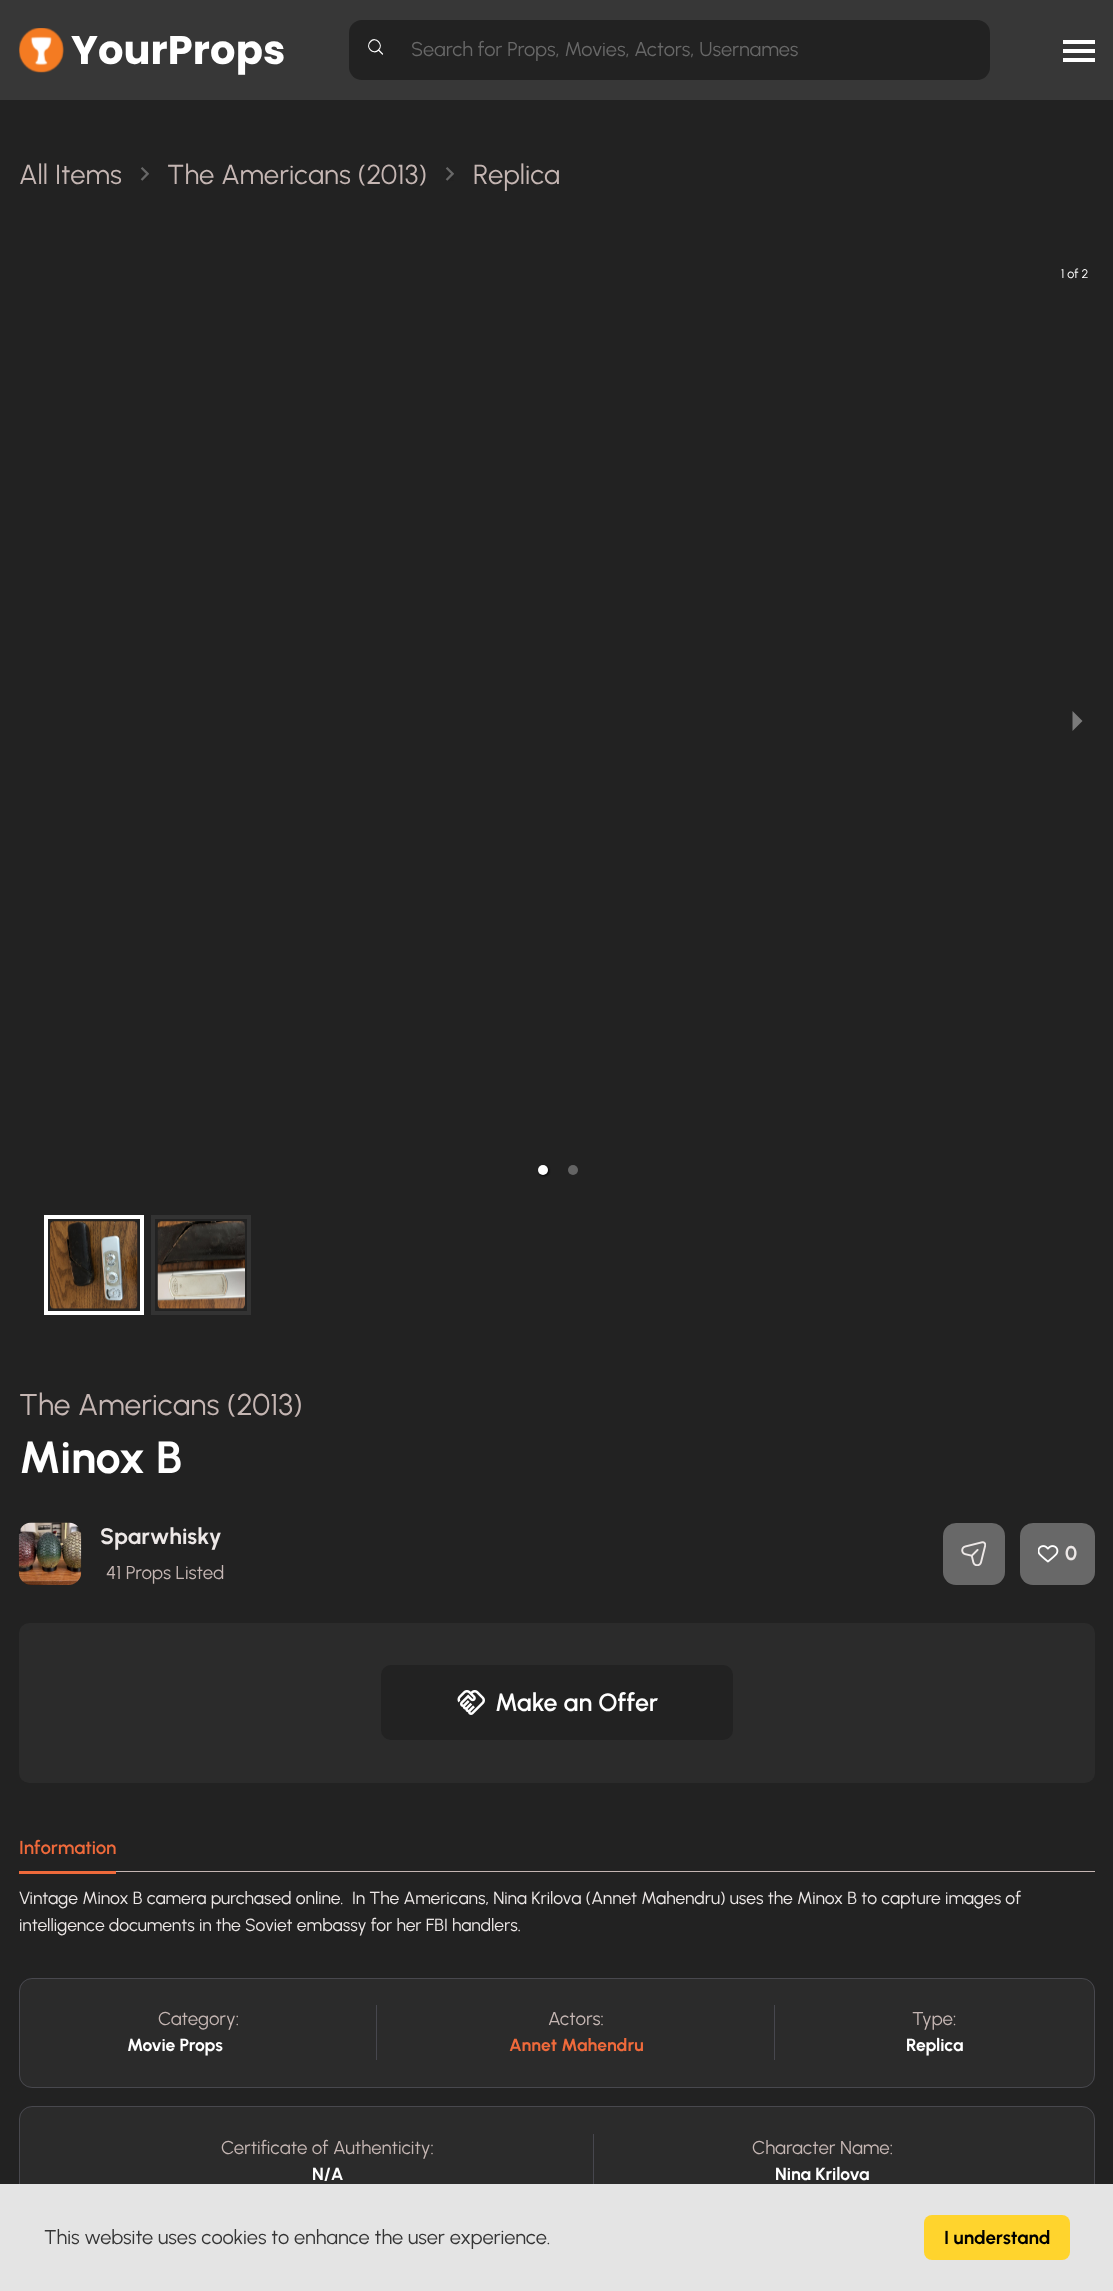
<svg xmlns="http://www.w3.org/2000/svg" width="1113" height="2291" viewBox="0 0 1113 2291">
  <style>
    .t1 { font: bold 40px Poppins; letter-spacing: 0.1px; fill: #fff; }
    .t2 { font: 20px Urbanist; fill: #686868; }
    .t3 { font: 27.5px Urbanist; letter-spacing: 0.1px; fill: #c5b6b3; }
    .t4 { font: 12.5px Urbanist; fill: #fff; }
    .t5 { font: 30px Urbanist; letter-spacing: 0.1px; fill: #c5b6b3; }
    .t6 { font: bold 45px Urbanist; fill: #fff; }
    .t7 { font: bold 22.5px Urbanist; letter-spacing: 0.1px; fill: #ede8e7; }
    .t8 { font: 18.75px Urbanist; fill: #c5b6b3; }
    .t9 { font: bold 20px Urbanist; fill: #ede8e7; }
    .t10 { font: 600 25px Urbanist; fill: #fff; }
    .t11 { font: 600 18.75px Urbanist; fill: #ef6a3b; }
    .t12 { font: 17.5px Urbanist; fill: #ede8e7; }
    .t13 { font: bold 17.5px Urbanist; fill: #fff; }
    .t14 { font: bold 17.5px Urbanist; letter-spacing: 0.1px; fill: #ef6a3b; }
    .t15 { font: 20px Urbanist; fill: #353535; }
    .t16 { font: bold 18.75px Urbanist; fill: #000; }
  </style>
  <rect width="100%" height="100%" fill="#222"/>
  <rect x="0" y="0" width="1113" height="100" fill="#373737"/>
  <image x="19" y="28" width="45" height="45" href="images/1.png"/>
  <text x="71" y="64" class="t1">YourProps</text>
  <rect x="349" y="20" width="641" height="60" rx="13" fill="#222"/>
  <path d="M382.5 54L378.5 50M378.5 50C384 44.5 375.5 36 370.5 41.5C365 47 373 55.5 378.5 50Z" fill="none" stroke="#fff" stroke-width="1.2" stroke-linecap="round" stroke-linejoin="round"/>
  <text x="411" y="56" class="t2">Search for Props, Movies, Actors, Usernames</text>
  <rect x="1063" y="40" width="32" height="4" fill="#fff"/>
  <rect x="1063" y="49" width="32" height="4" fill="#fff"/>
  <rect x="1063" y="58" width="32" height="4" fill="#fff"/>
  <text x="19" y="184" class="t3">All Items</text>
  <image x="140" y="167" width="9" height="14" href="images/2.png"/>
  <text x="167" y="184" class="t3">The Americans (2013)</text>
  <image x="445" y="167" width="9" height="14" href="images/2.png"/>
  <text x="473" y="184" class="t3">Replica</text>
  <text x="1061" y="278" class="t4">1 of 2</text>
  <path d="M1072.5 731V711L1082.5 721Z" fill="#7a7a7a"/>
  <rect x="539" y="1166" width="10" height="10" rx="5" fill="#000000e6" filter="blur(1px)"/>
  <circle cx="543" cy="1170" r="5" fill="#fff"/>
  <circle cx="573" cy="1170" r="5" fill="#646464"/>
  <rect x="46" y="1217" width="96" height="96" fill="none" stroke="#fff" stroke-width="4"/>
  <image x="50" y="1221" width="88" height="88" href="images/3.png"/>
  <rect x="153" y="1217" width="96" height="96" fill="none" stroke="#333" stroke-width="4"/>
  <image x="157" y="1221" width="88" height="88" href="images/4.png"/>
  <text x="19" y="1415" class="t5">The Americans (2013)</text>
  <text x="19" y="1473" class="t6">Minox B</text>
  <image x="18" y="1522" width="64" height="63" href="images/5.png"/>
  <text x="100" y="1544" class="t7">Sparwhisky</text>
  <text x="106" y="1579" class="t8">41 Props Listed</text>
  <rect x="943" y="1523" width="62" height="62" rx="13" fill="#686868"/>
  <image x="961" y="1541" width="25" height="25" href="images/6.png"/>
  <rect x="1020" y="1523" width="75" height="62" rx="13" fill="#686868"/>
  <image x="1038" y="1545" width="21" height="18" href="images/7.png"/>
  <text x="1065" y="1560" class="t9">0</text>
  <rect x="19" y="1623" width="1076" height="160" rx="10" fill="#2b2b2b"/>
  <rect x="381" y="1665" width="352" height="75" rx="10" fill="#222"/>
  <image x="457" y="1690" width="28" height="25" href="images/8.png"/>
  <text x="495" y="1711" class="t10">Make an Offer</text>
  <rect x="116" y="1871" width="979" height="1" fill="#c5b6b3"/>
  <text x="19" y="1854" class="t11">Information</text>
  <rect x="19" y="1871" width="97" height="3" fill="#ef6a3b"/>
  <text x="19" y="1904" class="t12" xml:space="preserve">Vintage Minox B camera purchased online.  In The Americans, Nina Krilova (Annet Mahendru) uses the Minox B to capture images of</text>
  <text x="19" y="1931" class="t12">intelligence documents in the Soviet embassy for her FBI handlers.</text>
  <rect x="19" y="1978" width="1076" height="110" rx="13" fill="#2b2b2b"/>
  <rect x="19.5" y="1978.5" width="1075" height="109" rx="12.5" fill="none" stroke="#8a8aa04d"/>
  <text x="158" y="2025" class="t8">Category:</text>
  <text x="127" y="2051" class="t13">Movie Props</text>
  <rect x="774" y="2005" width="1" height="55" fill="#47474e"/>
  <rect x="376" y="2005" width="1" height="55" fill="#47474e"/>
  <text x="548" y="2025" class="t8">Actors:</text>
  <text x="509" y="2051" class="t14">Annet Mahendru</text>
  <text x="912" y="2025" class="t8">Type:</text>
  <text x="906" y="2051" class="t13">Replica</text>
  <rect x="19" y="2106" width="1076" height="110" rx="13" fill="#2b2b2b"/>
  <rect x="19.5" y="2106.5" width="1075" height="109" rx="12.5" fill="none" stroke="#8a8aa04d"/>
  <rect x="593" y="2134" width="1" height="55" fill="#47474e"/>
  <text x="221" y="2154" class="t8">Certificate of Authenticity:</text>
  <text x="312" y="2180" class="t13">N/A</text>
  <text x="752" y="2154" class="t8">Character Name:</text>
  <text x="775" y="2180" class="t13">Nina Krilova</text>
  <rect x="0" y="2184" width="1113" height="107" fill="#e4e4e4"/>
  <text x="44" y="2244" class="t15">This website uses cookies to enhance the user experience.</text>
  <rect x="924" y="2215" width="146" height="45" rx="8" fill="#ffd42d"/>
  <text x="944" y="2244" class="t16">I understand</text>
</svg>
